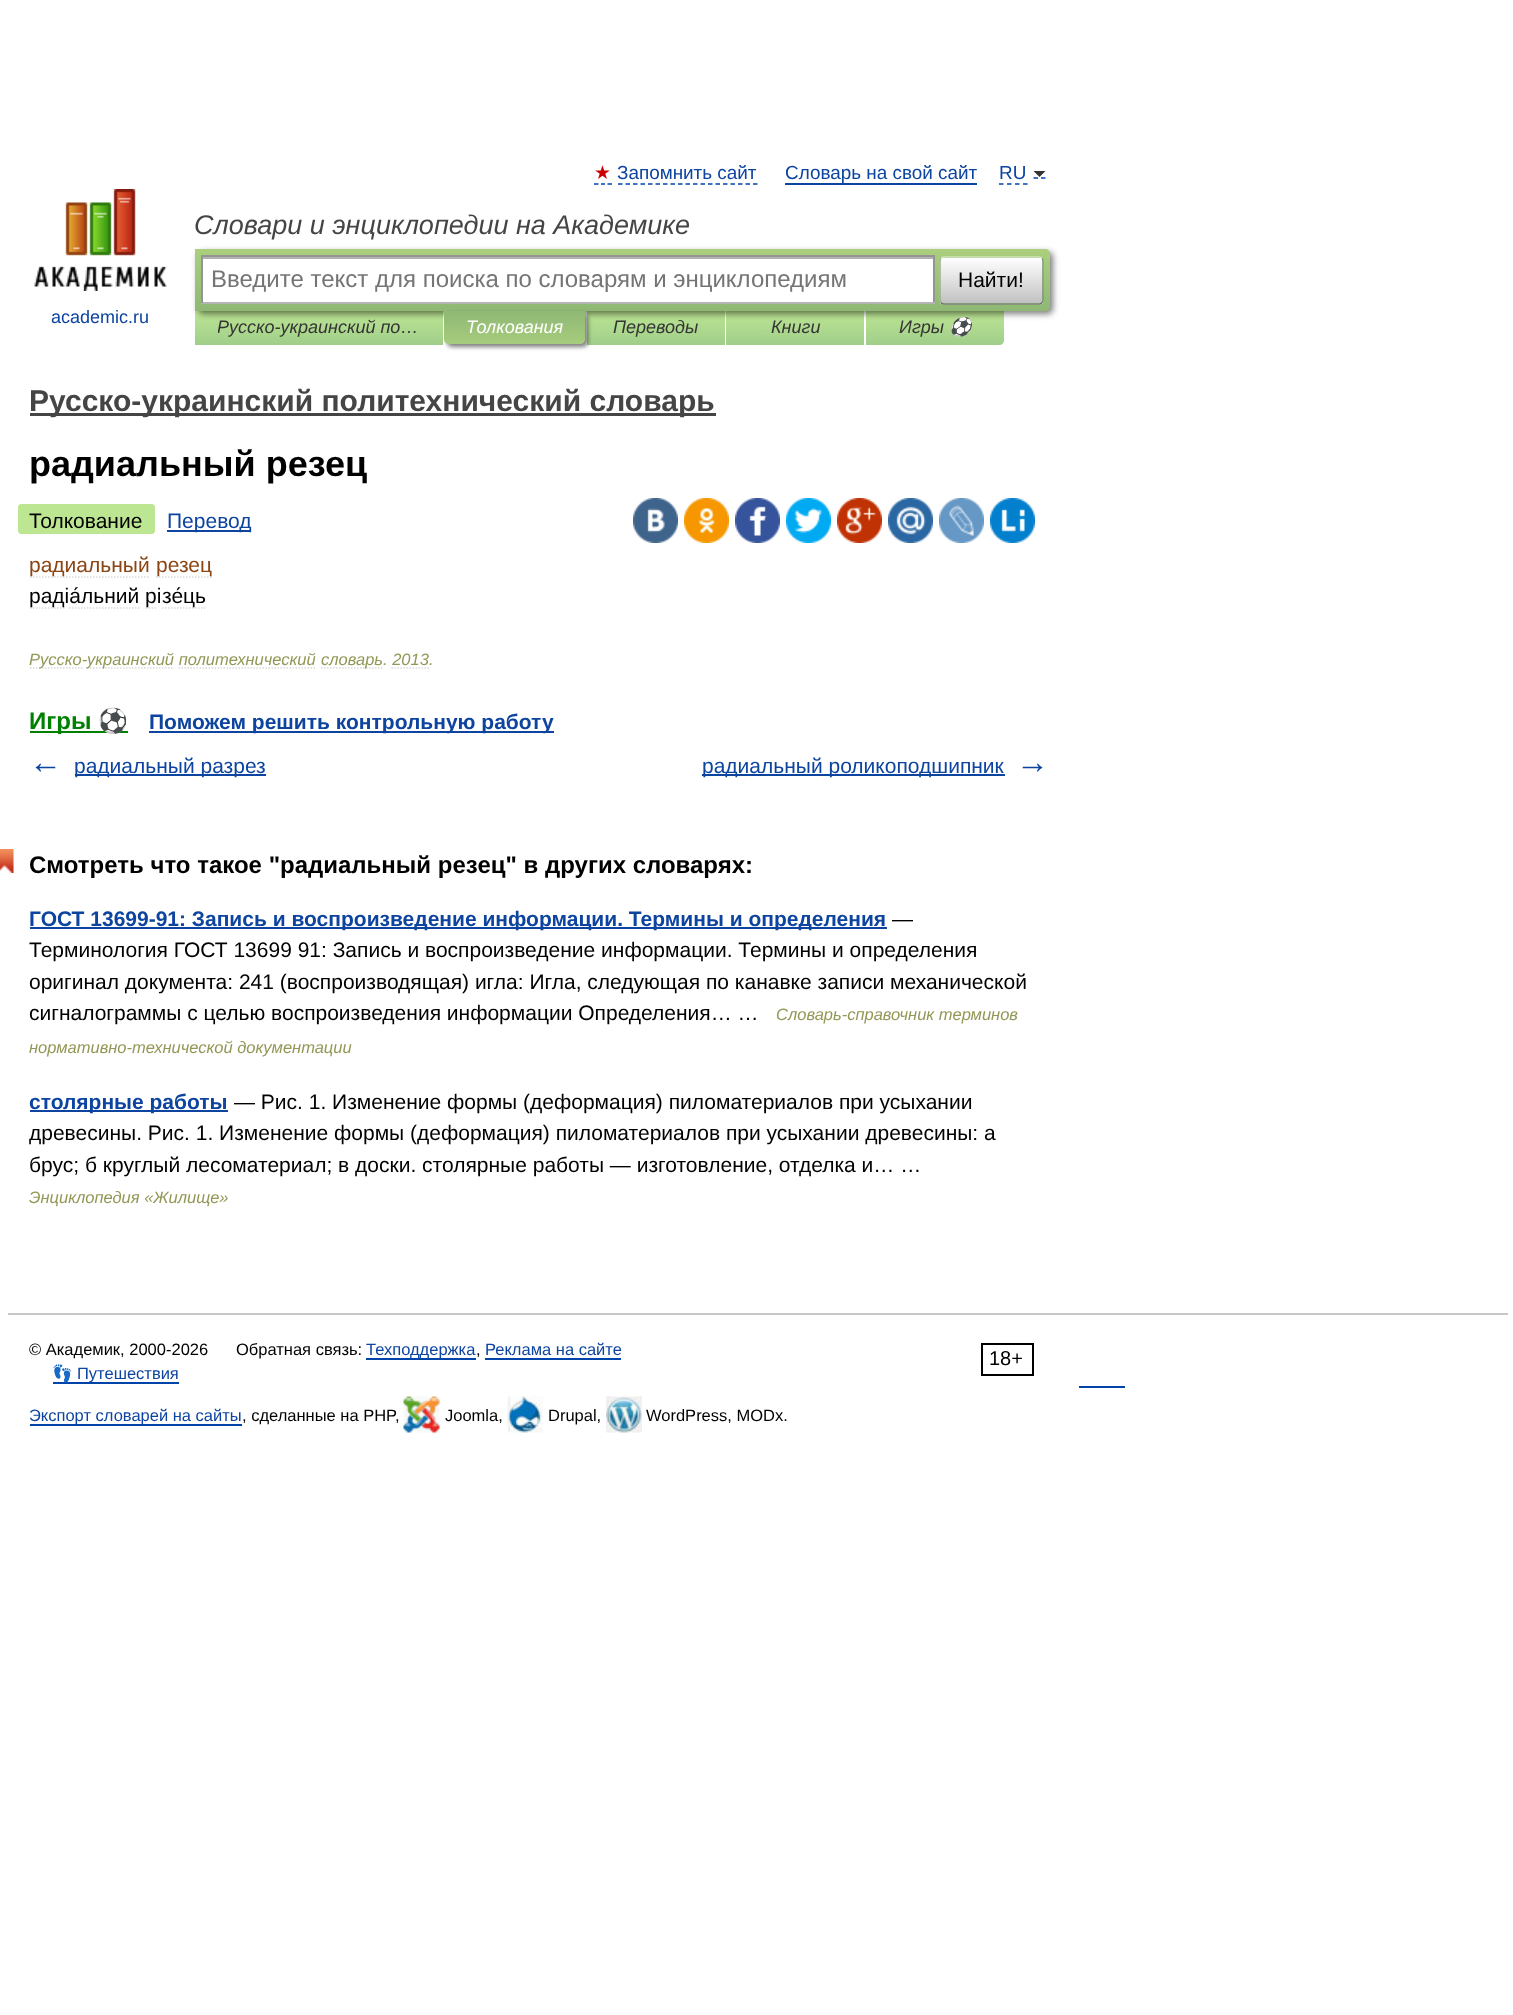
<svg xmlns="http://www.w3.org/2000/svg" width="1513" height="2015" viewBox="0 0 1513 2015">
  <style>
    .t1 { font: 18.9px DejaVu Sans; fill: #c00; }
    .t2 { font: 18.9px Liberation Sans; fill: #0d44a0; }
    .t3 { font: italic 27px Liberation Sans; fill: #454545; }
    .t4 { font: 24px Liberation Sans; fill: #757575; }
    .t5 { font: 21px Liberation Sans; fill: #000; }
    .t6 { font: 18px Liberation Sans; fill: #0d44a0; }
    .t7 { font: italic 18px Liberation Sans; fill: #353535; }
    .t8 { font: italic 18px Liberation Sans; fill: #fff; }
    .t9 { font: italic 18px Noto Color Emoji; fill: #353535; }
    .t10 { font: bold 30px Liberation Sans; fill: #454545; }
    .t11 { font: bold 36px Liberation Sans; fill: #000; }
    .t12 { font: 21px Liberation Sans; fill: #0d44a0; }
    .t13 { font: 21px Liberation Sans; fill: #8b4513; }
    .t14 { font: italic 16.5px Liberation Sans; fill: #939756; }
    .t15 { font: bold 24px Liberation Sans; fill: #008000; }
    .t16 { font: bold 24px Noto Color Emoji; fill: #008000; }
    .t17 { font: bold 21px Liberation Sans; fill: #0d44a0; }
    .t18 { font: bold 33px Liberation Sans; fill: #0d44a0; }
    .t19 { font: bold 24px Liberation Sans; fill: #000; }
    .t20 { font: 16.5px Liberation Sans; fill: #000; }
    .t21 { font: 16.5px Liberation Sans; fill: #0d44a0; }
    .t22 { font: 20px Liberation Sans; fill: #000; }
    .t23 { font: 16.5px Noto Color Emoji; fill: #0d44a0; }
  </style>
  <defs>
    <linearGradient id="g1" gradientUnits="userSpaceOnUse" x1="319" y1="311" x2="319" y2="345"><stop offset="0" stop-color="#bde693"/><stop offset="1" stop-color="#a0ce8a"/></linearGradient>
    <linearGradient id="g2" gradientUnits="userSpaceOnUse" x1="656" y1="311" x2="656" y2="345"><stop offset="0" stop-color="#bde693"/><stop offset="1" stop-color="#a0ce8a"/></linearGradient>
    <linearGradient id="g3" gradientUnits="userSpaceOnUse" x1="795" y1="311" x2="795" y2="345"><stop offset="0" stop-color="#bde693"/><stop offset="1" stop-color="#a0ce8a"/></linearGradient>
    <linearGradient id="g4" gradientUnits="userSpaceOnUse" x1="935" y1="311" x2="935" y2="345"><stop offset="0" stop-color="#bde693"/><stop offset="1" stop-color="#a0ce8a"/></linearGradient>
    <linearGradient id="g5" gradientUnits="userSpaceOnUse" x1="623" y1="249" x2="623" y2="311"><stop offset="0" stop-color="#abcf7e"/><stop offset="1" stop-color="#8eb874"/></linearGradient>
    <clipPath id="clip1"><rect x="939" y="257" width="105" height="48" rx="5"/></clipPath>
    <linearGradient id="g6" gradientUnits="userSpaceOnUse" x1="992" y1="258" x2="992" y2="303"><stop offset="0" stop-color="#fff"/><stop offset="1" stop-color="#c1c1c1"/></linearGradient>
    <linearGradient id="g7" gradientUnits="userSpaceOnUse" x1="992" y1="303" x2="992" y2="348"><stop offset="0" stop-color="#fff"/><stop offset="1" stop-color="#c1c1c1"/></linearGradient>
    <clipPath id="clip2"><rect x="218" y="311" width="202" height="34"/></clipPath>
    <linearGradient id="g8" gradientUnits="userSpaceOnUse" x1="515" y1="311" x2="515" y2="344"><stop offset="0" stop-color="#8fb875"/><stop offset="1" stop-color="#a7cc7d"/></linearGradient>
  </defs>
  <rect width="100%" height="100%" fill="#fff"/>
  <text x="594" y="179" class="t1">★</text>
  <path d="M594 184H598.5M601 184H605M607.5 184H612" fill="none" stroke="#04a" stroke-width="1.5"/>
  <text x="617" y="179" class="t2">Запомнить сайт</text>
  <path d="M618 184H757.5" fill="none" stroke="#04a" stroke-width="1.5" stroke-dasharray="4.5 3"/>
  <text x="785" y="179" class="t2">Словарь на свой сайт</text>
  <rect x="785" y="183" width="192" height="2" fill="#0d44a0"/>
  <path d="M999 184H1027.5" fill="none" stroke="#04a" stroke-width="1.5" stroke-dasharray="4.5 3.5"/>
  <path d="M1033.5 178H1038M1041 178H1045.5" fill="none" stroke="#04a" stroke-width="1.5"/>
  <text x="999" y="179" class="t2">RU</text>
  <path d="M1033.5 171H1045.5L1039.5 177Z" fill="#333"/>
  <text x="194" y="234" class="t3">Словари и энциклопедии на Академике</text>
  <rect x="195" y="311" width="248" height="34" fill="url(#g1)"/>
  <rect x="587" y="311" width="138" height="34" fill="url(#g2)"/>
  <rect x="726" y="311" width="138" height="34" fill="url(#g3)"/>
  <path d="M866 311H1004V340C1004 343 1002 345 999 345H866Z" fill="url(#g4)"/>
  <rect x="198" y="252" width="855" height="62" rx="5" fill="#00000080" filter="blur(3px)"/>
  <path d="M195 249H1045C1048 249 1050 251 1050 254V306C1050 309 1048 311 1045 311H195Z" fill="url(#g5)"/>
  <rect x="203" y="259" width="730" height="43" fill="#fff"/>
  <rect x="203" y="257" width="730" height="2" fill="#b3b3b3"/>
  <rect x="201" y="255" width="734" height="2" fill="#949494"/>
  <rect x="933" y="255" width="2" height="48" fill="#949494"/>
  <rect x="201" y="302" width="734" height="2" fill="#b4b4b4"/>
  <rect x="201" y="255" width="2" height="48" fill="#949494"/>
  <text x="211" y="287" class="t4">Введите текст для поиска по словарям и энциклопедиям</text>
  <g clip-path="url(#clip1)">
    <rect x="939" y="258" width="105" height="45" fill="url(#g6)"/>
    <rect x="939" y="303" width="105" height="2" fill="url(#g7)"/>
  </g>
  <path d="M941 258.5C941.5 257.5 942.5 257 943.5 257H1039.5C1040.5 257 1041.5 257.5 1042 258.5" fill="none" stroke="#d1e4bc" stroke-width="1.5"/>
  <path d="M1042 258.5C1043 259 1043 260 1043 261V300C1043 301 1043 302 1042 302.5" fill="none" stroke="#7a8e69" stroke-width="1.5"/>
  <path d="M1042 302.5C1041.5 303.5 1040.5 304 1039.5 304H943.5C942.5 304 941.5 303.5 941 302.5" fill="none" stroke="#5d7250" stroke-width="1.5"/>
  <path d="M941 302.5C940 302 940 301 940 300V261C940 260 940 259 941 258.5" fill="none" stroke="#9aae89" stroke-width="1.5"/>
  <text x="958" y="287" class="t5">Найти!</text>
  <image x="34" y="189" width="133" height="102" href="images/1.png"/>
  <text x="51" y="323" class="t6">academic.ru</text>
  <g clip-path="url(#clip2)">
    <text x="217" y="333" class="t7">Русско-украинский по…</text>
  </g>
  <rect x="447" y="314" width="141" height="33" rx="5" fill="#00000080" filter="blur(2px)"/>
  <path d="M444 311H585V339C585 342 583 344 580 344H449C446 344 444 342 444 339Z" fill="url(#g8)"/>
  <text x="466" y="333" class="t8">Толкования</text>
  <text x="613" y="333" class="t7">Переводы</text>
  <text x="771" y="333" class="t7">Книги</text>
  <text x="899" y="333" class="t7">Игры</text>
  <text x="949" y="333" class="t9">⚽</text>
  <rect x="30" y="413" width="686" height="3" fill="#454545"/>
  <text x="29" y="411" class="t10">Русско-украинский политехнический словарь</text>
  <text x="29" y="476" class="t11">радиальный резец</text>
  <path d="M21 504H30V534H21C19.5 534 18 532.5 18 531V507C18 505.5 19.5 504 21 504Z" fill="#bde693"/>
  <path d="M30 504H152C153.5 504 155 505.5 155 507V531C155 532.5 153.5 534 152 534H30Z" fill="#bde693"/>
  <text x="29" y="528" class="t5">Толкование</text>
  <rect x="167" y="530" width="84" height="2" fill="#0d44a0"/>
  <text x="167" y="528" class="t12">Перевод</text>
  <image x="633" y="498" width="45" height="45" href="images/2.png"/>
  <image x="684" y="498" width="45" height="45" href="images/3.png"/>
  <image x="735" y="498" width="45" height="45" href="images/4.png"/>
  <image x="786" y="498" width="45" height="45" href="images/5.png"/>
  <image x="837" y="498" width="45" height="45" href="images/6.png"/>
  <image x="888" y="498" width="45" height="45" href="images/7.png"/>
  <image x="939" y="498" width="45" height="45" href="images/8.png"/>
  <image x="990" y="498" width="45" height="45" href="images/9.png"/>
  <path d="M30 577H150" fill="none" stroke="#d9d9d9" stroke-width="1.5" stroke-dasharray="1.5 1.5"/>
  <text x="29" y="572" class="t13">радиальный</text>
  <path d="M156 577H211.5" fill="none" stroke="#d9d9d9" stroke-width="1.5" stroke-dasharray="1.5 1.5"/>
  <text x="156" y="572" class="t13">резец</text>
  <path d="M30 608H64.5" fill="none" stroke="#d9d9d9" stroke-width="1.5" stroke-dasharray="1.5 1.5"/>
  <text x="29" y="603" class="t5">радіа́льний</text>
  <path d="M69 608H139.5" fill="none" stroke="#d9d9d9" stroke-width="1.5" stroke-dasharray="1.5 1.5"/>
  <path d="M145.5 608H157.5" fill="none" stroke="#d9d9d9" stroke-width="1.5" stroke-dasharray="1.5 1.5"/>
  <text x="145" y="603" class="t5">рі</text>
  <path d="M162 608H205.5" fill="none" stroke="#d9d9d9" stroke-width="1.5" stroke-dasharray="1.5 1.5"/>
  <text x="162" y="603" class="t5">зе́ць</text>
  <path d="M30 668H82.5" fill="none" stroke="#d9d9d9" stroke-width="1.5" stroke-dasharray="1.5 1.5"/>
  <text x="29" y="665" class="t14">Русско-</text>
  <path d="M87 668H174" fill="none" stroke="#d9d9d9" stroke-width="1.5" stroke-dasharray="1.5 1.5"/>
  <text x="87" y="665" class="t14">украинский политехнический</text>
  <path d="M178.5 668H316.5" fill="none" stroke="#d9d9d9" stroke-width="1.5" stroke-dasharray="1.5 1.5"/>
  <path d="M321 668H382.5" fill="none" stroke="#d9d9d9" stroke-width="1.5" stroke-dasharray="1.5 1.5"/>
  <text x="321" y="665" class="t14">словарь. 2013.</text>
  <path d="M391.5 668H429" fill="none" stroke="#d9d9d9" stroke-width="1.5" stroke-dasharray="1.5 1.5"/>
  <rect x="30" y="731" width="98" height="2" fill="#008000"/>
  <text x="29" y="729" class="t15">Игры</text>
  <text x="98" y="729" class="t16">⚽</text>
  <rect x="149" y="731" width="405" height="2" fill="#0d44a0"/>
  <text x="149" y="729" class="t17">Поможем решить контрольную работу</text>
  <text x="29" y="773" class="t18">←</text>
  <rect x="75" y="774" width="191" height="2" fill="#0d44a0"/>
  <text x="74" y="773" class="t12">радиальный разрез</text>
  <rect x="702" y="774" width="303" height="2" fill="#0d44a0"/>
  <text x="702" y="773" class="t12">радиальный роликоподшипник</text>
  <text x="1016" y="773" class="t18">→</text>
  <image x="0" y="849" width="14" height="24" href="images/10.png"/>
  <text x="29" y="873" class="t19">Смотреть что такое "радиальный резец" в других словарях:</text>
  <rect x="30" y="927" width="857" height="2" fill="#0d44a0"/>
  <text x="29" y="926" class="t17">ГОСТ 13699-91: Запись и воспроизведение информации. Термины и определения</text>
  <text x="892" y="926" class="t5">—</text>
  <text x="29" y="957" class="t5">Терминология ГОСТ 13699 91: Запись и воспроизведение информации. Термины и определения</text>
  <text x="29" y="989" class="t5">оригинал документа: 241 (воспроизводящая) игла: Игла, следующая по канавке записи механической</text>
  <text x="29" y="1020" class="t5">сигналограммы с целью воспроизведения информации Определения… …</text>
  <text x="776" y="1020" class="t14">Словарь-справочник терминов</text>
  <text x="29" y="1053" class="t14">нормативно-технической документации</text>
  <rect x="30" y="1110" width="198" height="2" fill="#0d44a0"/>
  <text x="29" y="1109" class="t17">столярные работы</text>
  <text x="234" y="1109" class="t5">— Рис. 1. Изменение формы (деформация) пиломатериалов при усыхании</text>
  <text x="29" y="1140" class="t5">древесины. Рис. 1. Изменение формы (деформация) пиломатериалов при усыхании древесины: а</text>
  <text x="29" y="1172" class="t5">брус; б круглый лесоматериал; в доски. столярные работы — изготовление, отделка и… …</text>
  <text x="29" y="1203" class="t14">Энциклопедия «Жилище»</text>
  <rect x="8" y="1313" width="1500" height="2" fill="#c7c7c7"/>
  <text x="29" y="1355" class="t20">© Академик, 2000-2026</text>
  <text x="236" y="1355" class="t20">Обратная связь:</text>
  <rect x="366" y="1358" width="110" height="2" fill="#04a"/>
  <text x="366" y="1355" class="t21">Техподдержка</text>
  <text x="476" y="1355" class="t20">,</text>
  <rect x="485" y="1358" width="136" height="2" fill="#04a"/>
  <text x="485" y="1355" class="t21">Реклама на сайте</text>
  <rect x="982" y="1344" width="51" height="31" fill="none" stroke="#000" stroke-width="2"/>
  <text x="989" y="1365" class="t22">18+</text>
  <rect x="53" y="1382" width="126" height="2" fill="#04a"/>
  <text x="52" y="1379" class="t23">👣</text>
  <text x="77" y="1379" class="t21">Путешествия</text>
  <rect x="1079" y="1386" width="46" height="2" fill="#04a"/>
  <rect x="30" y="1424" width="212" height="2" fill="#04a"/>
  <text x="29" y="1421" class="t21">Экспорт словарей на сайты</text>
  <text x="242" y="1421" class="t20">, сделанные на PHP,</text>
  <image x="403" y="1396" width="37" height="37" href="images/11.png"/>
  <text x="445" y="1421" class="t20">Joomla,</text>
  <image x="507" y="1396" width="36" height="37" href="images/12.png"/>
  <text x="548" y="1421" class="t20">Drupal,</text>
  <image x="606" y="1396" width="36" height="37" href="images/13.png"/>
  <text x="646" y="1421" class="t20">WordPress, MODx.</text>
</svg>
